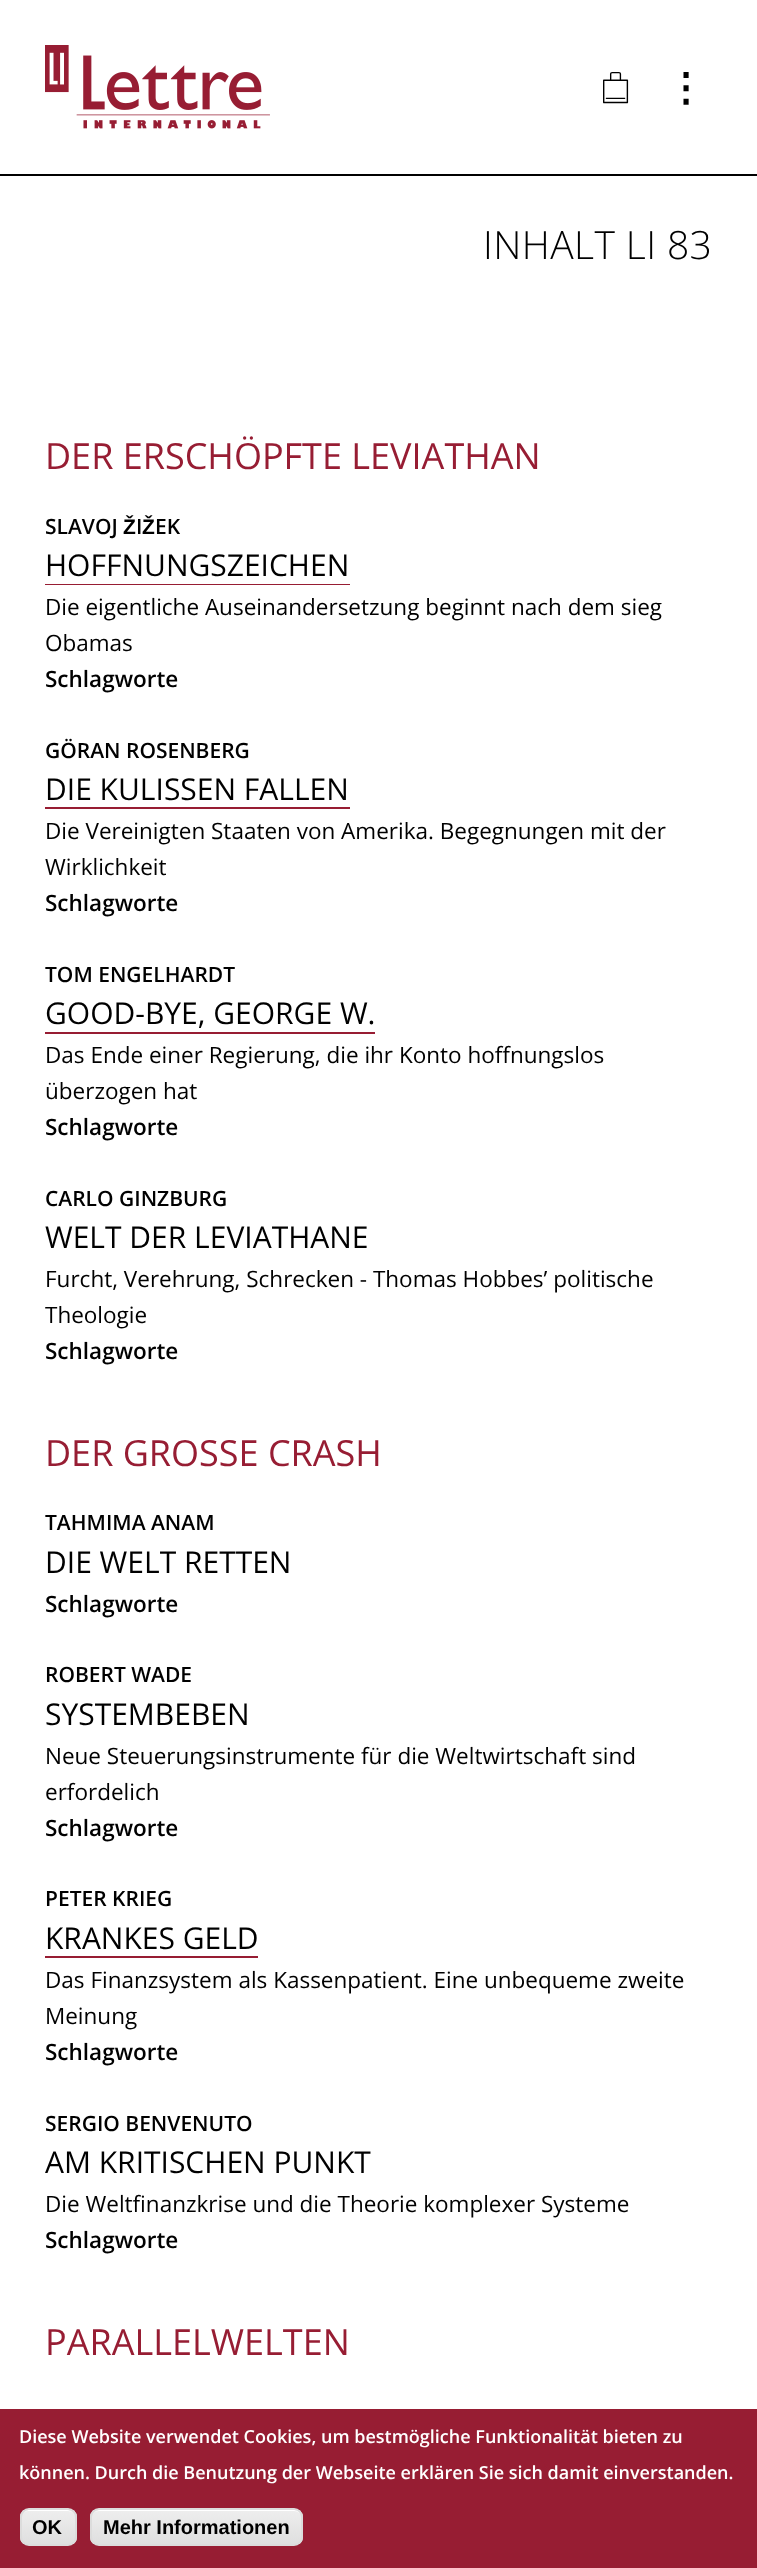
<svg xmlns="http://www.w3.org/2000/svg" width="757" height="2568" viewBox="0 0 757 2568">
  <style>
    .t1 { font: 39px basic; fill: #000; }
    .t2 { font: bold 39px DejaVu Sans; fill: #000; }
    .t3 { font: 300 39px Open Sans; letter-spacing: 0.4px; fill: #000; }
    .t4 { font: 36px Open Sans; fill: #971d33; }
    .t5 { font: 600 21px Open Sans; fill: #000; }
    .t6 { font: bold 21px Liberation Sans; fill: #000; }
    .t7 { font: 30px Open Sans; fill: #000; }
    .t8 { font: 22.5px Open Sans; fill: #000; }
    .t9 { font: 600 22.5px Open Sans; fill: #000; }
    .t10 { font: 600 18px Open Sans; fill: #fff; }
    .t11 { font: bold 20px Liberation Sans; fill: #000; }
  </style>
  <defs>
    <clipPath id="clip1"><rect x="20" y="2508" width="57" height="38" rx="9"/></clipPath>
    <linearGradient id="g1" gradientUnits="userSpaceOnUse" x1="48" y1="2510" x2="48" y2="2544"><stop offset="0.05" stop-color="#ededed"/><stop offset="1" stop-color="#dfdfdf"/></linearGradient>
    <clipPath id="clip2"><rect x="90" y="2508" width="213" height="38" rx="9"/></clipPath>
    <linearGradient id="g2" gradientUnits="userSpaceOnUse" x1="197" y1="2510" x2="197" y2="2544"><stop offset="0.05" stop-color="#ededed"/><stop offset="1" stop-color="#dfdfdf"/></linearGradient>
  </defs>
  <rect width="100%" height="100%" fill="#fff"/>
  <rect x="0" y="174" width="757" height="2" fill="#000"/>
  <image x="45" y="45" width="225" height="84" href="images/1.png"/>
  <text x="603" y="101" class="t1">🛍</text>
  <text x="666" y="101" class="t2">⋮</text>
  <text x="483" y="259" class="t3">INHALT LI 83</text>
  <text x="45" y="469" class="t4">DER ERSCHÖPFTE LEVIATHAN</text>
  <text x="45" y="534" class="t5">SLAVOJ</text>
  <text x="123" y="534" class="t6">Ž</text>
  <text x="136" y="534" class="t5">I</text>
  <text x="142" y="534" class="t6">Ž</text>
  <text x="155" y="534" class="t5">EK</text>
  <text x="45" y="576" class="t7">HOFFNUNGSZEICHEN</text>
  <rect x="45" y="584" width="305" height="1" fill="#971d33"/>
  <text x="45" y="615" class="t8">Die eigentliche Auseinandersetzung beginnt nach dem sieg</text>
  <text x="45" y="651" class="t8">Obamas</text>
  <text x="45" y="687" class="t9">Schlagworte</text>
  <text x="45" y="758" class="t5">GÖRAN ROSENBERG</text>
  <text x="45" y="800" class="t7">DIE KULISSEN FALLEN</text>
  <rect x="45" y="807" width="305" height="2" fill="#971d33"/>
  <text x="45" y="839" class="t8">Die Vereinigten Staaten von Amerika. Begegnungen mit der</text>
  <text x="45" y="875" class="t8">Wirklichkeit</text>
  <text x="45" y="911" class="t9">Schlagworte</text>
  <text x="45" y="982" class="t5">TOM ENGELHARDT</text>
  <text x="45" y="1024" class="t7">GOOD-BYE, GEORGE W.</text>
  <rect x="45" y="1032" width="330" height="2" fill="#971d33"/>
  <text x="45" y="1063" class="t8">Das Ende einer Regierung, die ihr Konto hoffnungslos</text>
  <text x="45" y="1099" class="t8">überzogen hat</text>
  <text x="45" y="1135" class="t9">Schlagworte</text>
  <text x="45" y="1206" class="t5">CARLO GINZBURG</text>
  <text x="45" y="1248" class="t7">WELT DER LEVIATHANE</text>
  <text x="45" y="1287" class="t8">Furcht, Verehrung, Schrecken - Thomas Hobbes’ politische</text>
  <text x="45" y="1323" class="t8">Theologie</text>
  <text x="45" y="1359" class="t9">Schlagworte</text>
  <text x="45" y="1466" class="t4">DER GROSSE CRASH</text>
  <text x="45" y="1530" class="t5">TAHMIMA ANAM</text>
  <text x="45" y="1573" class="t7">DIE WELT RETTEN</text>
  <text x="45" y="1612" class="t9">Schlagworte</text>
  <text x="45" y="1682" class="t5">ROBERT WADE</text>
  <text x="45" y="1725" class="t7">SYSTEMBEBEN</text>
  <text x="45" y="1764" class="t8">Neue Steuerungsinstrumente für die Weltwirtschaft sind</text>
  <text x="45" y="1800" class="t8">erfordelich</text>
  <text x="45" y="1836" class="t9">Schlagworte</text>
  <text x="45" y="1906" class="t5">PETER KRIEG</text>
  <text x="45" y="1949" class="t7">KRANKES GELD</text>
  <rect x="45" y="1956" width="213" height="2" fill="#971d33"/>
  <text x="45" y="1988" class="t8">Das Finanzsystem als Kassenpatient. Eine unbequeme zweite</text>
  <text x="45" y="2024" class="t8">Meinung</text>
  <text x="45" y="2060" class="t9">Schlagworte</text>
  <text x="45" y="2131" class="t5">SERGIO BENVENUTO</text>
  <text x="45" y="2173" class="t7">AM KRITISCHEN PUNKT</text>
  <text x="45" y="2212" class="t8">Die Weltfinanzkrise und die Theorie komplexer Systeme</text>
  <text x="45" y="2248" class="t9">Schlagworte</text>
  <text x="45" y="2355" class="t4">PARALLELWELTEN</text>
  <rect x="0" y="2409" width="757" height="159" fill="#971d33"/>
  <text x="19" y="2443" class="t10">Diese Website verwendet Cookies, um bestmögliche Funktionalität bieten zu</text>
  <text x="19" y="2479" class="t10">können. Durch die Benutzung der Webseite erklären Sie sich damit einverstanden.</text>
  <g clip-path="url(#clip1)">
    <rect x="20" y="2510" width="57" height="34" fill="url(#g1)"/>
  </g>
  <path d="M28 2511H68C72 2511 75 2514 75 2518C75 2514 71 2510 67 2510H29C25 2510 21 2514 21 2518C21 2514 24 2511 28 2511Z" fill="#fff"/>
  <rect x="21" y="2509" width="55" height="36" rx="8" fill="none" stroke="#dcdcdc" stroke-width="2"/>
  <text x="32" y="2534" class="t11">OK</text>
  <g clip-path="url(#clip2)">
    <rect x="90" y="2510" width="213" height="34" fill="url(#g2)"/>
  </g>
  <path d="M99 2511H294C298 2511 302 2514 302 2518C302 2514 298 2510 294 2510H100C96 2510 92 2514 92 2518C92 2514 95 2511 99 2511Z" fill="#fff"/>
  <rect x="91" y="2509" width="211" height="36" rx="8" fill="none" stroke="#dcdcdc" stroke-width="2"/>
  <text x="103" y="2534" class="t11">Mehr Informationen</text>
</svg>
